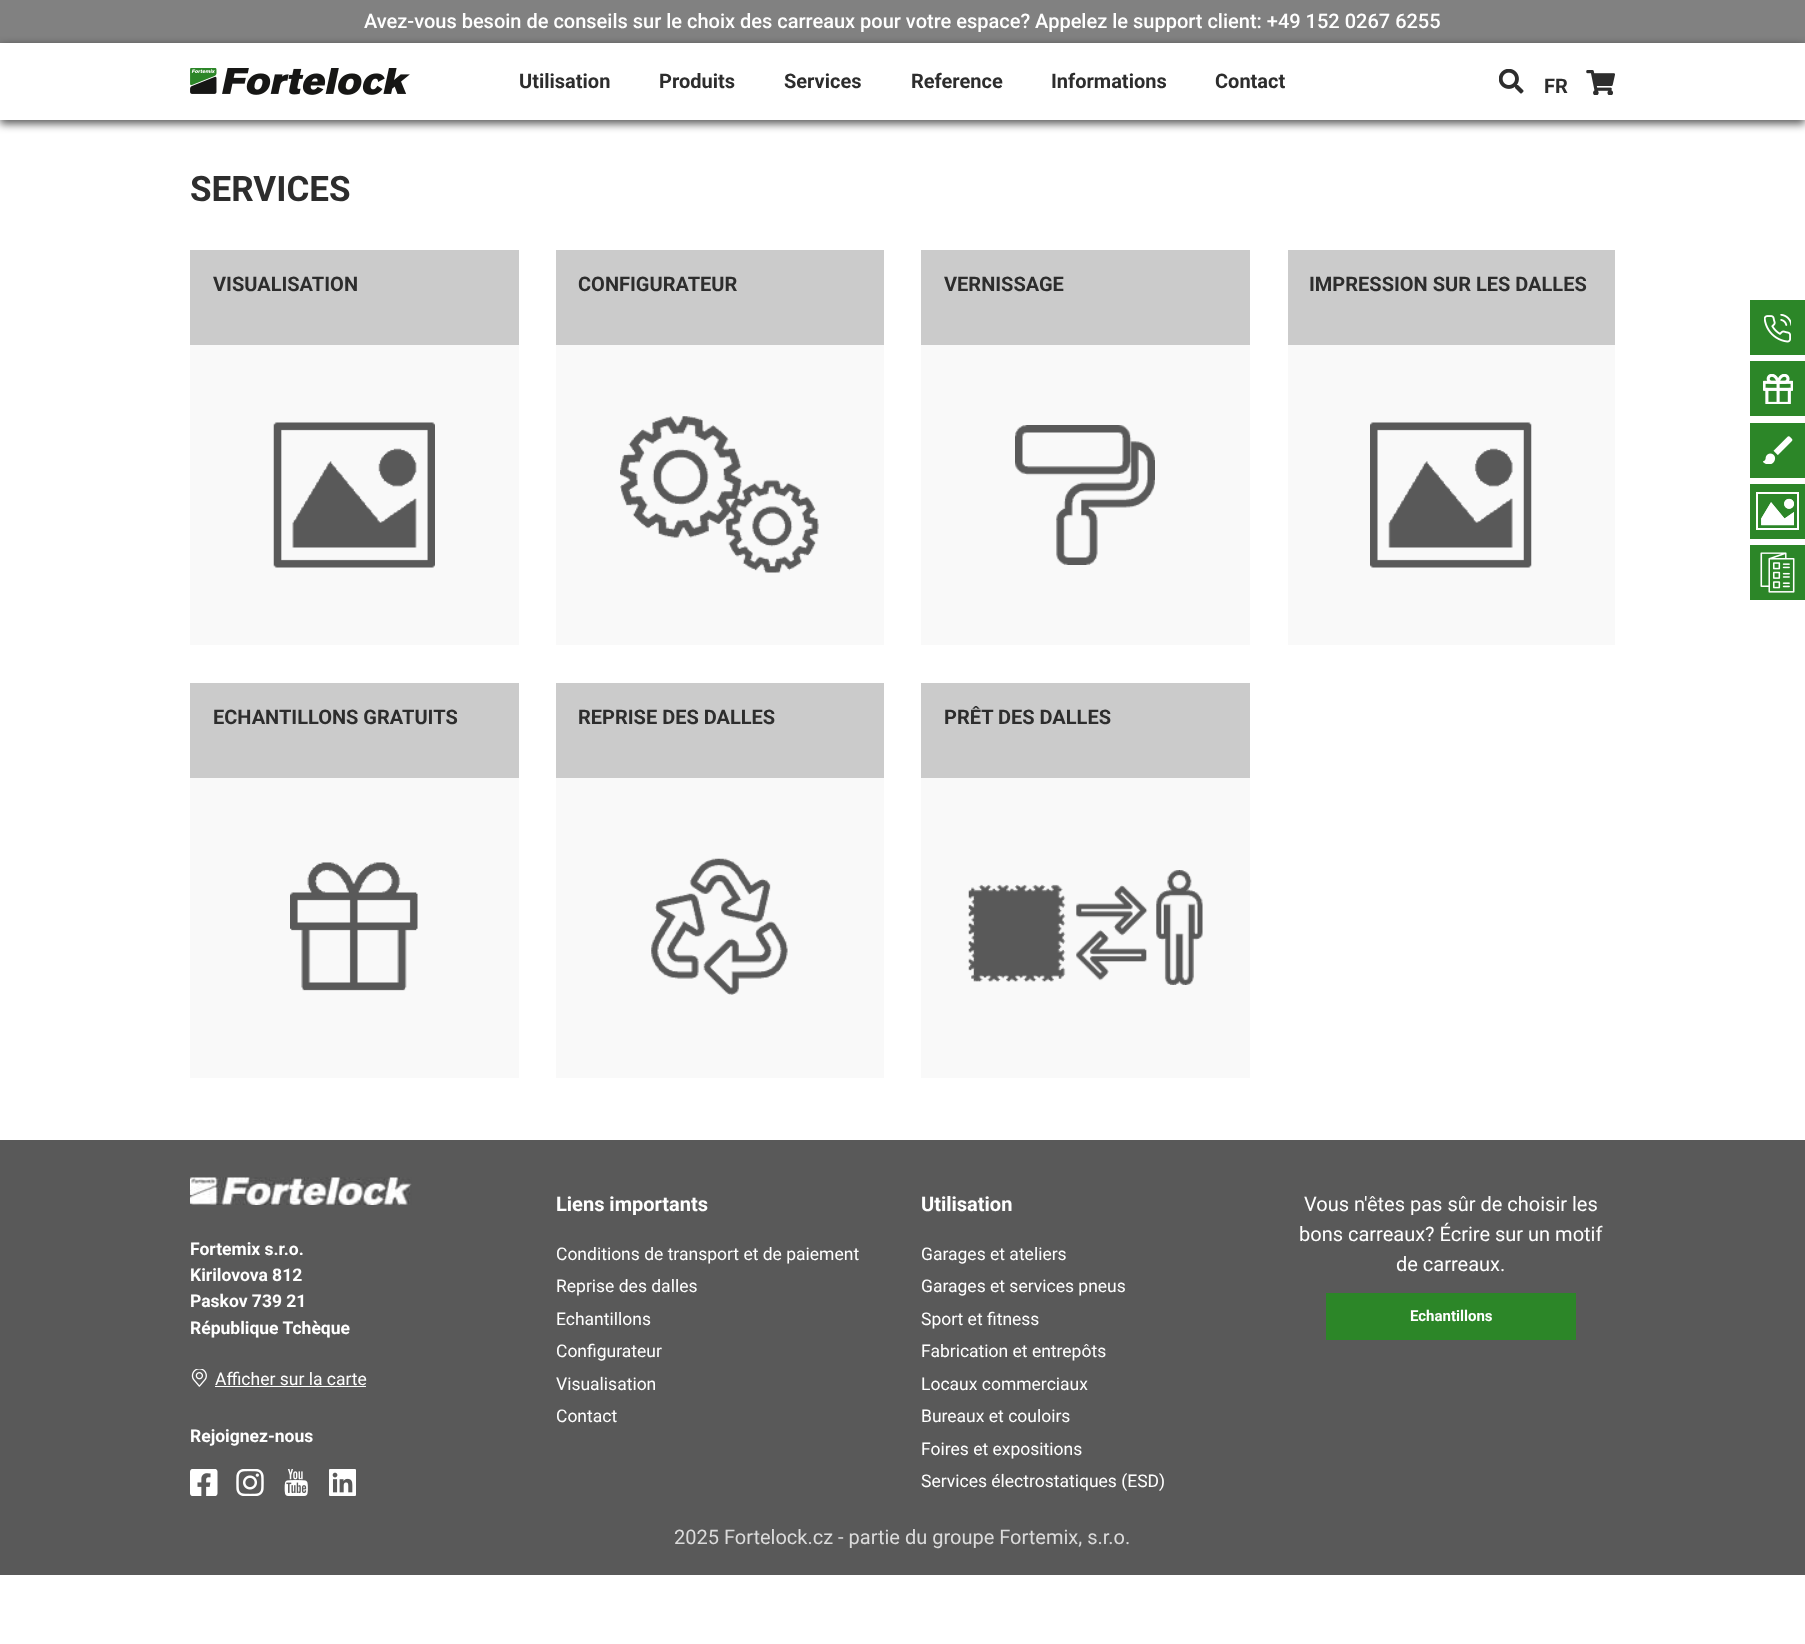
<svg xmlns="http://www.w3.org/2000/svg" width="1805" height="1644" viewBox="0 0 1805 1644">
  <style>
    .t1 { font: 500 20px Roboto; fill: #fff; }
    .t2 { font: bold 20px Roboto; fill: #2d2d2d; }
    .t3 { font: bold 35px Roboto; fill: #2d2d2d; }
    .t4 { font: bold 17.5px Roboto; fill: #fff; }
    .t5 { font: 17.5px Roboto; fill: #fff; }
    .t6 { font: bold 20px Roboto; fill: #fff; }
    .t7 { font: 20px Roboto; fill: #fff; }
    .t8 { font: bold 15px Roboto; fill: #fff; }
    .t9 { font: 20px Roboto; fill: #dbdbdb; }
  </style>
  <defs>
    <clipPath id="clip1"><path d="M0 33H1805V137H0ZM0 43H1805V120H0Z" clip-rule="evenodd"/></clipPath>
  </defs>
  <rect width="100%" height="100%" fill="#fff"/>
  <rect x="0" y="0" width="1805" height="43" fill="#818181"/>
  <text x="364" y="28" class="t1">Avez-vous besoin de conseils sur le choix des carreaux pour votre espace? Appelez le support client: +49 152 0267 6255</text>
  <g clip-path="url(#clip1)">
    <rect x="0" y="46" width="1805" height="78" fill="#000000a3" filter="blur(4px)"/>
  </g>
  <image x="190" y="68" width="220" height="27" href="images/1.png"/>
  <text x="519" y="88" class="t2">Utilisation</text>
  <text x="659" y="88" class="t2">Produits</text>
  <text x="784" y="88" class="t2">Services</text>
  <text x="911" y="88" class="t2">Reference</text>
  <text x="1051" y="88" class="t2">Informations</text>
  <text x="1215" y="88" class="t2">Contact</text>
  <image x="1499" y="69" width="25" height="25" href="images/2.png"/>
  <text x="1544" y="93" class="t2">FR</text>
  <image x="1586" y="70" width="29" height="25" href="images/3.png"/>
  <text x="190" y="201" class="t3">SERVICES</text>
  <rect x="190" y="250" width="329" height="95" fill="#cbcbcb"/>
  <text x="213" y="291" class="t2">VISUALISATION</text>
  <rect x="190" y="345" width="329" height="300" fill="#f9f9f9"/>
  <image x="273" y="422" width="162" height="146" href="images/4.png"/>
  <rect x="556" y="250" width="328" height="95" fill="#cbcbcb"/>
  <text x="578" y="291" class="t2">CONFIGURATEUR</text>
  <rect x="556" y="345" width="328" height="300" fill="#f9f9f9"/>
  <image x="620" y="416" width="199" height="157" href="images/5.png"/>
  <rect x="921" y="250" width="329" height="95" fill="#cbcbcb"/>
  <text x="944" y="291" class="t2">VERNISSAGE</text>
  <rect x="921" y="345" width="329" height="300" fill="#f9f9f9"/>
  <image x="1015" y="425" width="140" height="140" href="images/6.png"/>
  <rect x="1288" y="250" width="327" height="95" fill="#cbcbcb"/>
  <text x="1309" y="291" class="t2">IMPRESSION SUR LES DALLES</text>
  <rect x="1288" y="345" width="327" height="300" fill="#f9f9f9"/>
  <image x="1370" y="422" width="162" height="146" href="images/7.png"/>
  <rect x="190" y="683" width="329" height="95" fill="#cbcbcb"/>
  <text x="213" y="724" class="t2">ECHANTILLONS GRATUITS</text>
  <rect x="190" y="778" width="329" height="300" fill="#f9f9f9"/>
  <image x="290" y="862" width="128" height="129" href="images/8.png"/>
  <rect x="556" y="683" width="328" height="95" fill="#cbcbcb"/>
  <text x="578" y="724" class="t2">REPRISE DES DALLES</text>
  <rect x="556" y="778" width="328" height="300" fill="#f9f9f9"/>
  <image x="651" y="858" width="137" height="137" href="images/9.png"/>
  <rect x="921" y="683" width="329" height="95" fill="#cbcbcb"/>
  <text x="944" y="724" class="t2">PRÊT DES DALLES</text>
  <rect x="921" y="778" width="329" height="300" fill="#f9f9f9"/>
  <image x="968" y="870" width="235" height="115" href="images/10.png"/>
  <rect x="1750" y="300" width="55" height="55" fill="#2c8628"/>
  <image x="1764" y="314" width="27" height="29" href="images/11.png"/>
  <rect x="1750" y="361" width="55" height="55" fill="#2c8628"/>
  <image x="1763" y="374" width="30" height="30" href="images/12.png"/>
  <rect x="1750" y="423" width="55" height="55" fill="#2c8628"/>
  <image x="1763" y="436" width="30" height="28" href="images/13.png"/>
  <rect x="1750" y="484" width="55" height="55" fill="#2c8628"/>
  <image x="1756" y="492" width="43" height="38" href="images/14.png"/>
  <rect x="1750" y="545" width="55" height="55" fill="#2c8628"/>
  <image x="1760" y="552" width="35" height="41" href="images/15.png"/>
  <rect x="0" y="1140" width="1805" height="435" fill="#595959"/>
  <image x="190" y="1177" width="222" height="28" href="images/16.png"/>
  <text x="190" y="1255" class="t4">Fortemix s.r.o.</text>
  <text x="190" y="1281" class="t4">Kirilovova 812</text>
  <text x="190" y="1307" class="t4">Paskov 739 21</text>
  <text x="190" y="1334" class="t4">République Tchèque</text>
  <image x="191" y="1369" width="16" height="18" href="images/17.png"/>
  <text x="215" y="1385" class="t5">Afficher sur la carte</text>
  <rect x="215" y="1386" width="151" height="1" fill="#fff"/>
  <text x="190" y="1442" class="t4">Rejoignez-nous</text>
  <image x="190" y="1469" width="28" height="27" href="images/18.png"/>
  <image x="236" y="1469" width="28" height="27" href="images/19.png"/>
  <image x="284" y="1469" width="24" height="27" href="images/20.png"/>
  <image x="329" y="1469" width="27" height="27" href="images/21.png"/>
  <text x="556" y="1211" class="t6">Liens importants</text>
  <text x="556" y="1260" class="t5">Conditions de transport et de paiement</text>
  <text x="556" y="1292" class="t5">Reprise des dalles</text>
  <text x="556" y="1325" class="t5">Echantillons</text>
  <text x="556" y="1357" class="t5">Configurateur</text>
  <text x="556" y="1390" class="t5">Visualisation</text>
  <text x="556" y="1422" class="t5">Contact</text>
  <text x="921" y="1211" class="t6">Utilisation</text>
  <text x="921" y="1260" class="t5">Garages et ateliers</text>
  <text x="921" y="1292" class="t5">Garages et services pneus</text>
  <text x="921" y="1325" class="t5">Sport et fitness</text>
  <text x="921" y="1357" class="t5">Fabrication et entrepôts</text>
  <text x="921" y="1390" class="t5">Locaux commerciaux</text>
  <text x="921" y="1422" class="t5">Bureaux et couloirs</text>
  <text x="921" y="1455" class="t5">Foires et expositions</text>
  <text x="921" y="1487" class="t5">Services électrostatiques (ESD)</text>
  <text x="1304" y="1211" class="t7">Vous n'êtes pas sûr de choisir les</text>
  <text x="1299" y="1241" class="t7">bons carreaux? Écrire sur un motif</text>
  <text x="1396" y="1271" class="t7">de carreaux.</text>
  <rect x="1326" y="1293" width="250" height="47" fill="#2c8628"/>
  <text x="1410" y="1321" class="t8">Echantillons</text>
  <text x="674" y="1544" class="t9">2025 Fortelock.cz - partie du groupe Fortemix, s.r.o.</text>
</svg>
